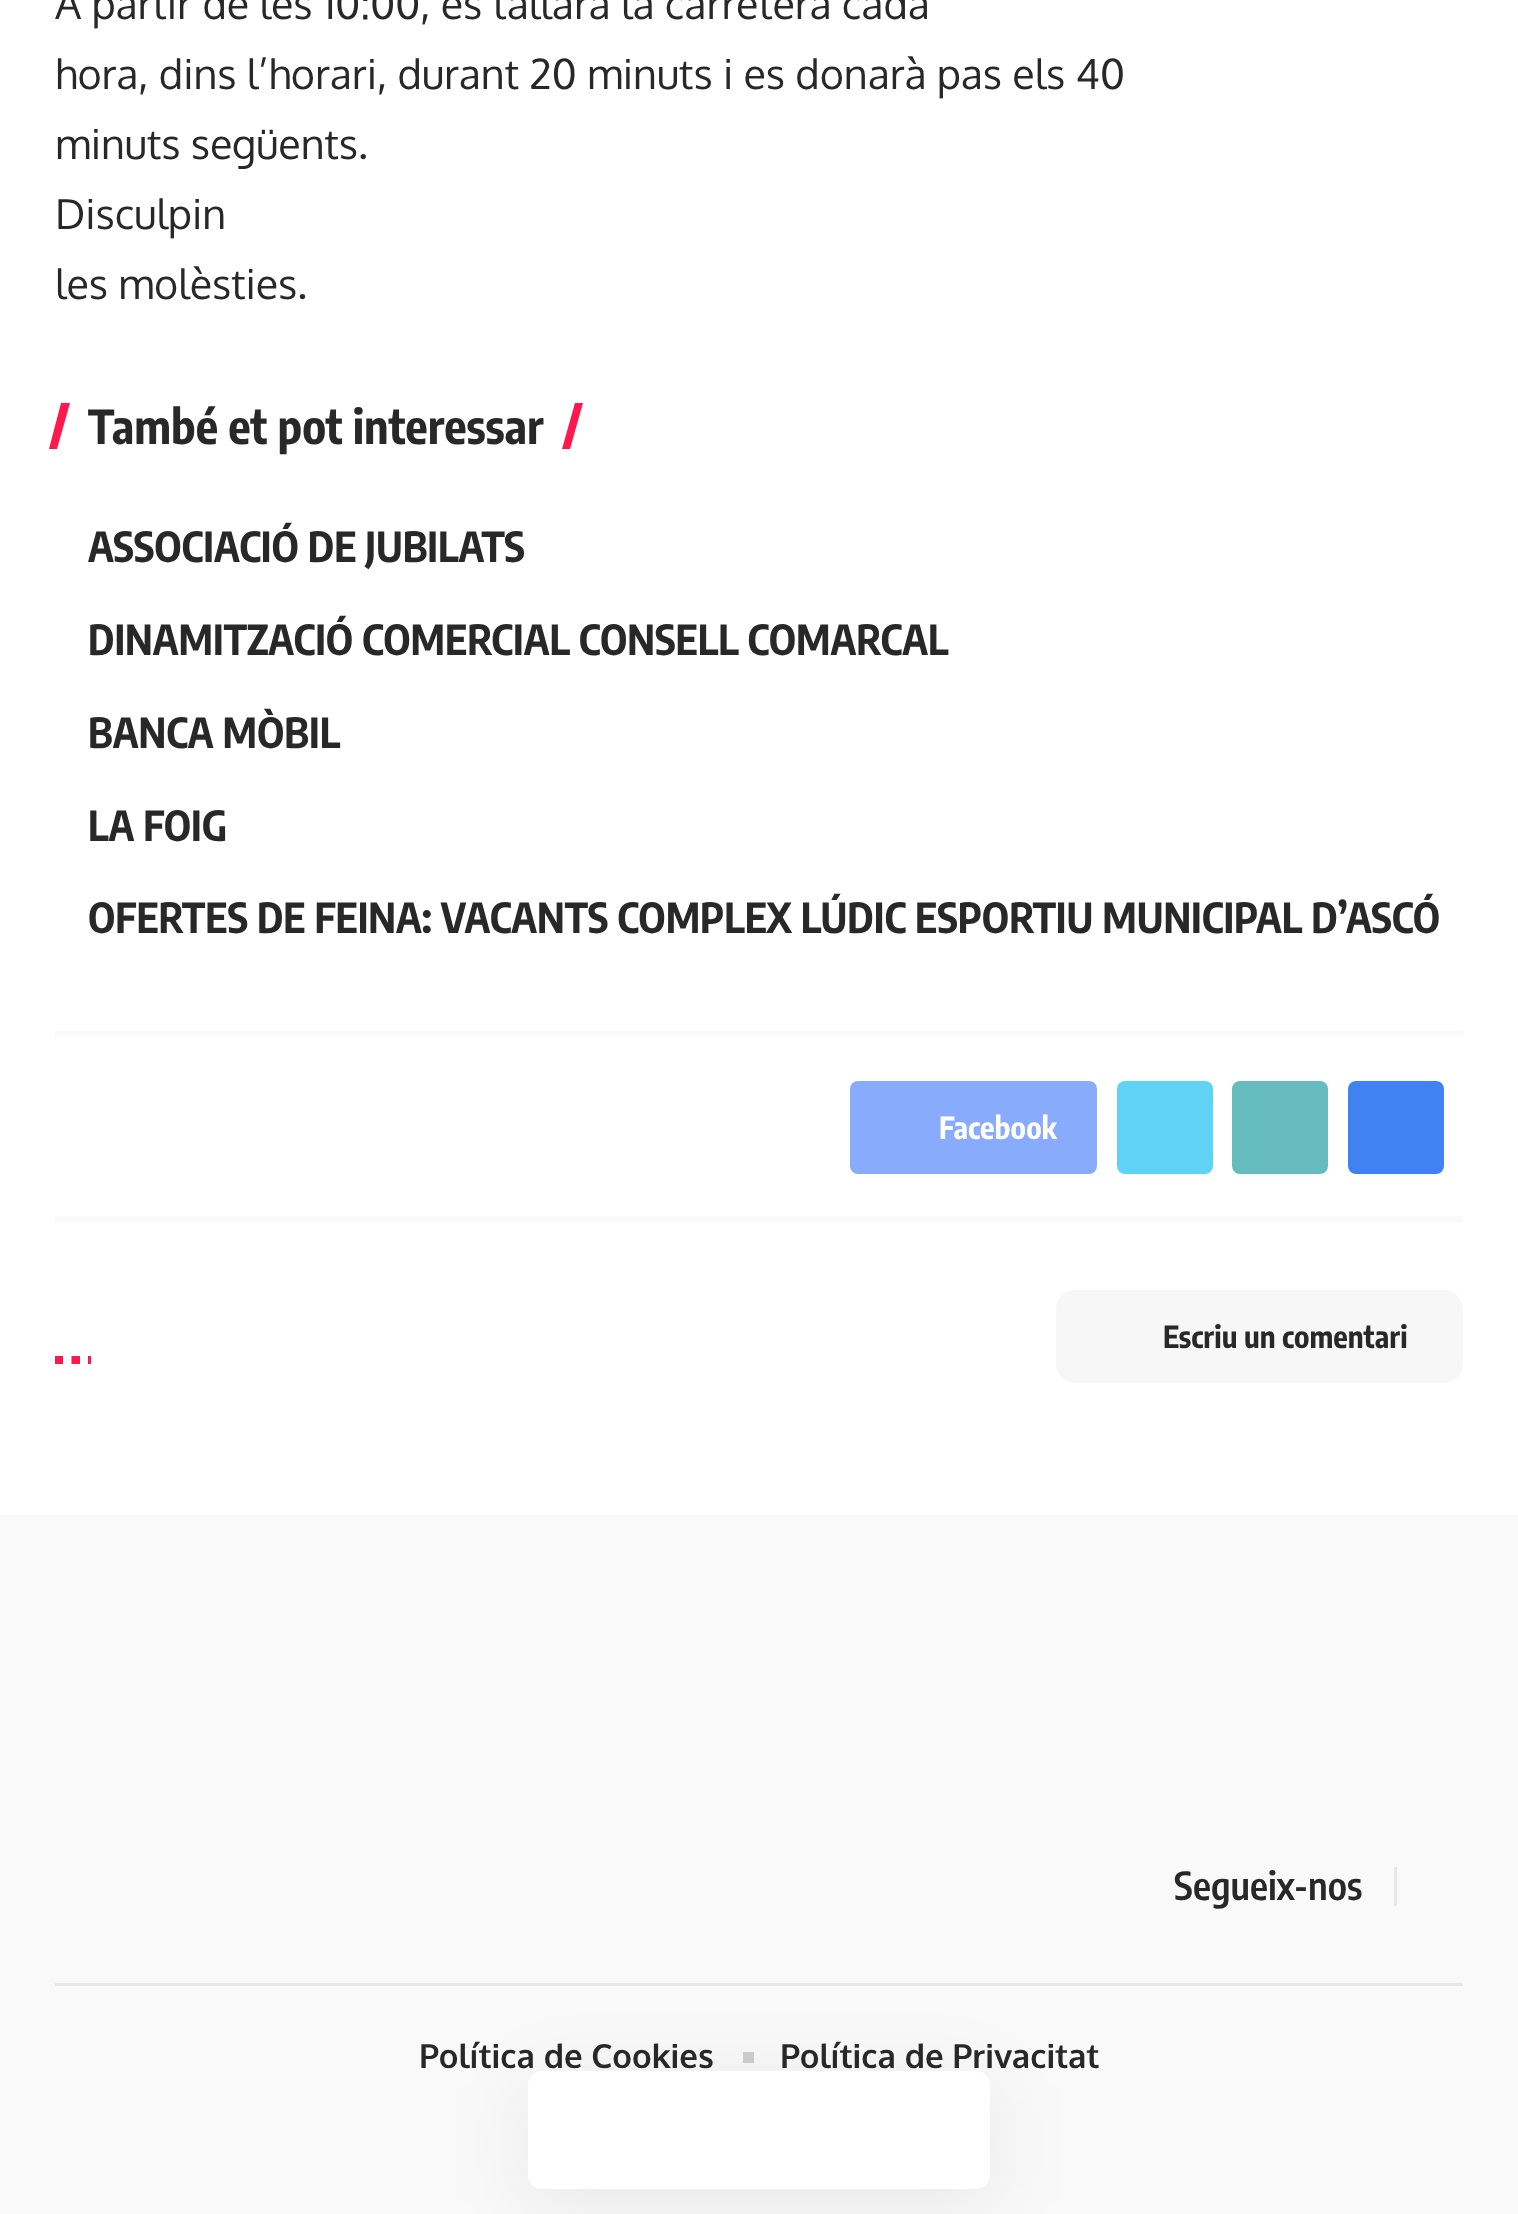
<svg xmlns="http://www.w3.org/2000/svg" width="1518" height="2214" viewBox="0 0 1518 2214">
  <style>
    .t1 { font: 41.25px Oxygen; fill: #282828; }
    .t2 { font: bold 46.75px Encode Sans Condensed; fill: #282828; }
    .t3 { font: bold 41.25px Encode Sans Condensed; fill: #282828; }
    .t4 { font: bold 30.25px Encode Sans Condensed; fill: #fff; }
    .t5 { font: bold 30.25px Encode Sans Condensed; fill: #282828; }
    .t6 { font: 600 38.5px Encode Sans Condensed; fill: #282828; }
    .t7 { font: bold 33px Oxygen; fill: #282828; }
  </style>
  <rect width="100%" height="100%" fill="#fff"/>
  <text x="55" y="19" class="t1">A partir de les 10:00, es tallarà la carretera cada</text>
  <text x="55" y="89" class="t1">hora, dins l’horari, durant 20 minuts i es donarà pas els 40</text>
  <text x="55" y="159" class="t1">minuts següents.</text>
  <text x="55" y="229" class="t1">Disculpin</text>
  <text x="55" y="299" class="t1">les molèsties.</text>
  <path d="M575 403H583L570 449H562Z" fill="#ff184e"/>
  <path d="M61 403H70L57 449H49Z" fill="#ff184e"/>
  <text x="88" y="444" class="t2">També et pot interessar</text>
  <text x="88" y="562" class="t3">ASSOCIACIÓ DE JUBILATS</text>
  <text x="88" y="655" class="t3">DINAMITZACIÓ COMERCIAL CONSELL COMARCAL</text>
  <text x="88" y="748" class="t3">BANCA MÒBIL</text>
  <text x="88" y="841" class="t3">LA FOIG</text>
  <text x="88" y="933" class="t3">OFERTES DE FEINA: VACANTS COMPLEX LÚDIC ESPORTIU MUNICIPAL D’ASCÓ</text>
  <rect x="0" y="1515" width="1518" height="699" fill="#f9f9f9"/>
  <rect x="55" y="1983" width="1408" height="3" fill="#e8e8e8"/>
  <rect x="743" y="2052" width="11" height="11" fill="#cfcfcf"/>
  <rect x="528" y="2085" width="462" height="118" rx="14" fill="#00000012" filter="blur(41px)"/>
  <rect x="528" y="2071" width="462" height="118" rx="14" fill="#fff"/>
  <rect x="55" y="1031" width="1408" height="6" fill="#fafafa"/>
  <rect x="850" y="1081" width="247" height="93" rx="8" fill="#89abfc"/>
  <text x="939" y="1139" class="t4">Facebook</text>
  <rect x="1117" y="1081" width="96" height="93" rx="8" fill="#60d2f5"/>
  <rect x="1232" y="1081" width="96" height="93" rx="8" fill="#66bbbf"/>
  <rect x="1348" y="1081" width="96" height="93" rx="8" fill="#4082f1"/>
  <rect x="55" y="1216" width="1408" height="6" fill="#fafafa"/>
  <rect x="1056" y="1290" width="407" height="93" rx="19" fill="#f7f7f7"/>
  <text x="1163" y="1348" class="t5">Escriu un comentari</text>
  <path d="M55 1360H63M71.5 1360H80M88 1360H91" fill="none" stroke="#ff184e" stroke-width="8.2"/>
  <rect x="1394" y="1867" width="3" height="39" fill="#e8e8e8"/>
  <text x="1174" y="1900" class="t6">Segueix-nos</text>
  <text x="419" y="2068" class="t7">Política de Cookies</text>
  <text x="780" y="2068" class="t7">Política de Privacitat</text>
</svg>
